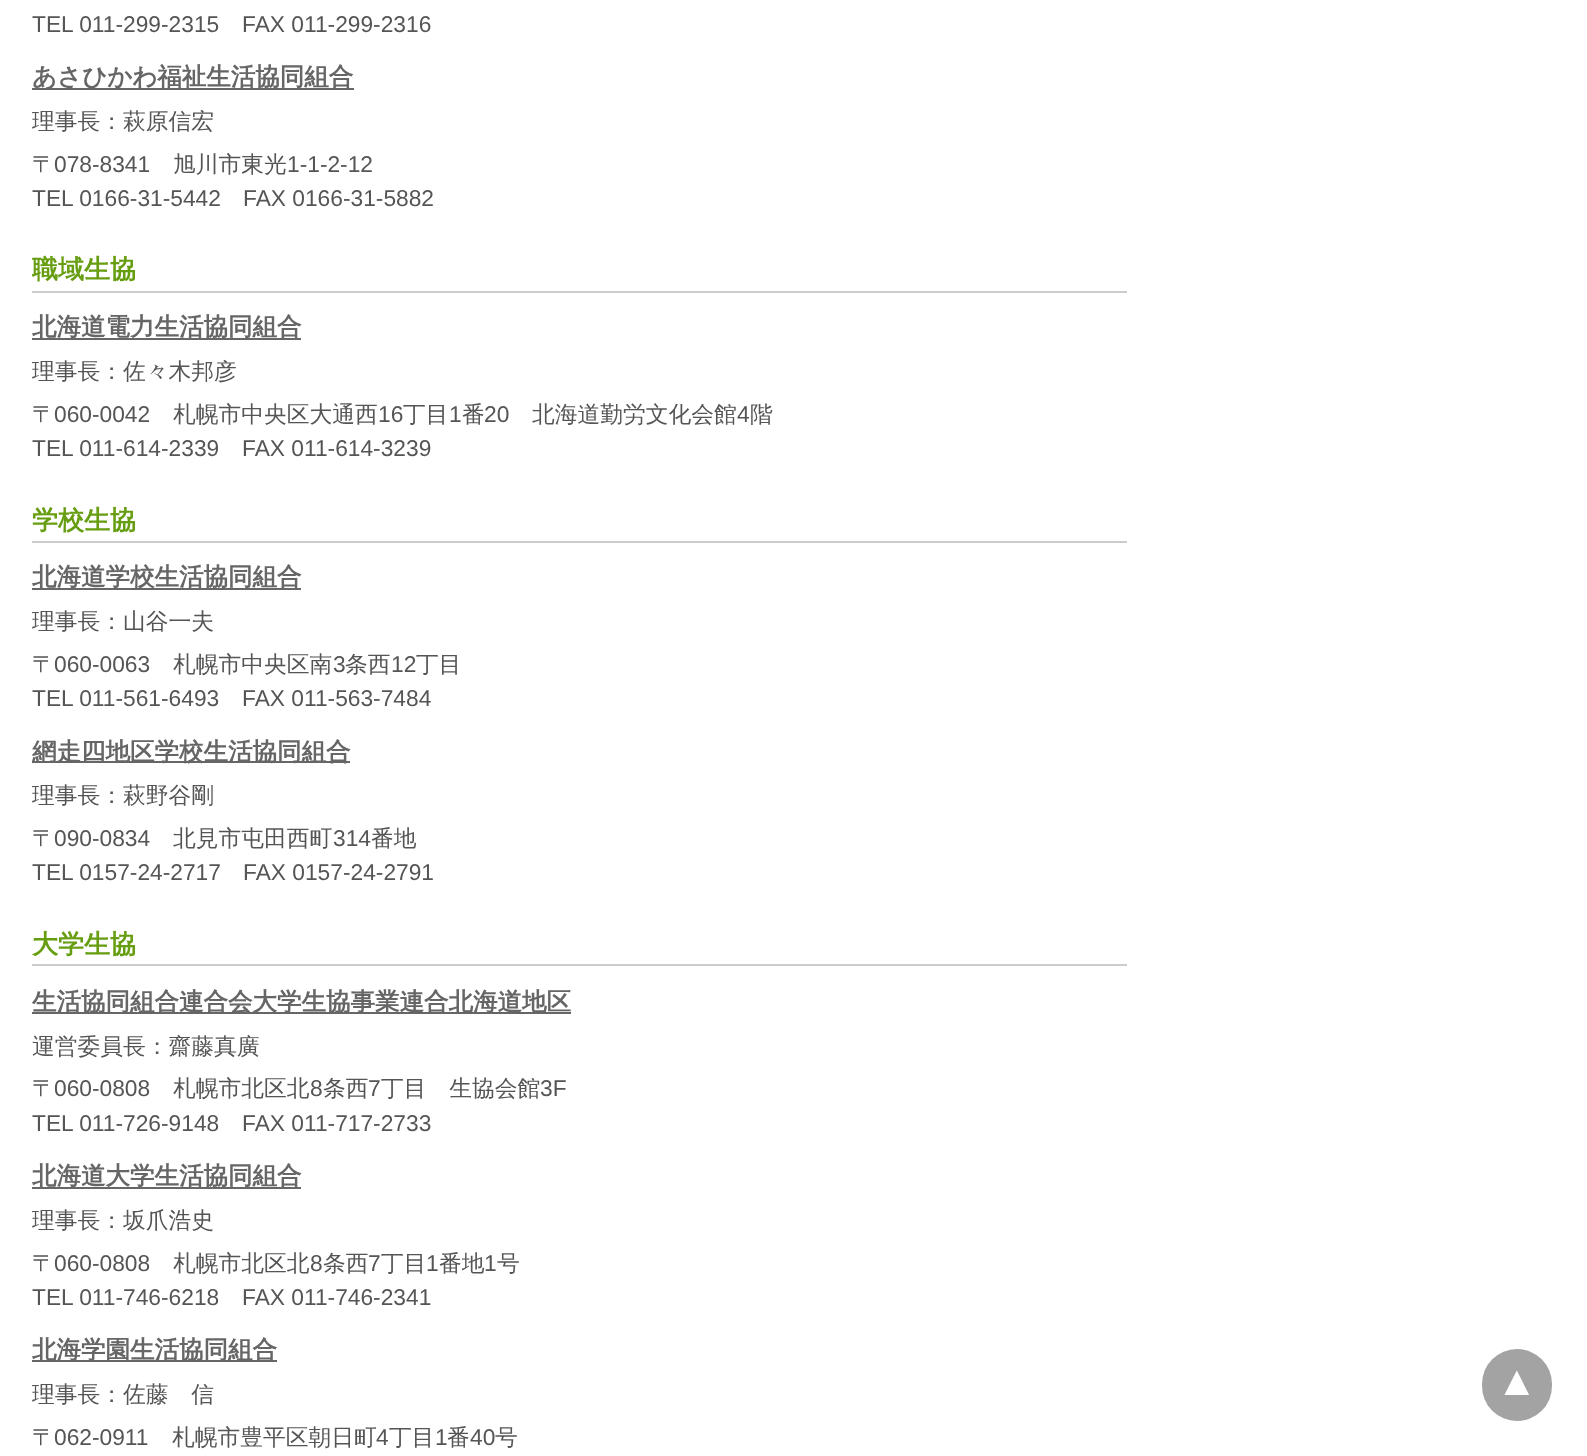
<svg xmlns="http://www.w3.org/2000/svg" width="1587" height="1456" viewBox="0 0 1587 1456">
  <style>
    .t1 { font: 22.75px Liberation Sans; fill: #555; }
    .t2 { font: bold 24.5px WenQuanYi Zen Hei; fill: #666; }
    .t3 { font: 500 22.75px WenQuanYi Zen Hei; fill: #555; }
    .t4 { font: bold 26px WenQuanYi Zen Hei; fill: #679e11; }
    .t5 { font: 42px Liberation Sans; fill: #fff; }
  </style>
  <rect width="100%" height="100%" fill="#fff"/>
  <text x="32" y="32" class="t1">TEL 011-299-2315</text>
  <text x="242" y="32" class="t1">FAX 011-299-2316</text>
  <rect x="32" y="88" width="322" height="2" fill="#666"/>
  <text x="32" y="85" class="t2">あさひかわ福祉生活協同組合</text>
  <text x="32" y="129" class="t3">理事長：萩原信宏</text>
  <text x="32" y="172" class="t3">〒</text>
  <text x="54" y="172" class="t1">078-8341</text>
  <text x="173" y="172" class="t3">旭川市東光</text>
  <text x="287" y="172" class="t1">1-1-2-12</text>
  <text x="32" y="206" class="t1">TEL 0166-31-5442</text>
  <text x="243" y="206" class="t1">FAX 0166-31-5882</text>
  <rect x="32" y="291" width="1095" height="2" fill="#ccc"/>
  <text x="32" y="278" class="t4">職域生協</text>
  <rect x="32" y="338" width="269" height="2" fill="#666"/>
  <text x="32" y="335" class="t2">北海道電力生活協同組合</text>
  <text x="32" y="379" class="t3">理事長：佐々木邦彦</text>
  <text x="32" y="422" class="t3">〒</text>
  <text x="54" y="422" class="t1">060-0042</text>
  <text x="173" y="422" class="t3">札幌市中央区大通西</text>
  <text x="378" y="422" class="t1">16</text>
  <text x="403" y="422" class="t3">丁目</text>
  <text x="449" y="422" class="t1">1</text>
  <text x="462" y="422" class="t3">番</text>
  <text x="484" y="422" class="t1">20</text>
  <text x="532" y="422" class="t3">北海道勤労文化会館</text>
  <text x="737" y="422" class="t1">4</text>
  <text x="750" y="422" class="t3">階</text>
  <text x="32" y="456" class="t1">TEL 011-614-2339</text>
  <text x="242" y="456" class="t1">FAX 011-614-3239</text>
  <rect x="32" y="541" width="1095" height="2" fill="#ccc"/>
  <text x="32" y="529" class="t4">学校生協</text>
  <rect x="32" y="588" width="269" height="2" fill="#666"/>
  <text x="32" y="585" class="t2">北海道学校生活協同組合</text>
  <text x="32" y="629" class="t3">理事長：山谷一夫</text>
  <text x="32" y="672" class="t3">〒</text>
  <text x="54" y="672" class="t1">060-0063</text>
  <text x="173" y="672" class="t3">札幌市中央区南</text>
  <text x="333" y="672" class="t1">3</text>
  <text x="345" y="672" class="t3">条西</text>
  <text x="391" y="672" class="t1">12</text>
  <text x="416" y="672" class="t3">丁目</text>
  <text x="32" y="706" class="t1">TEL 011-561-6493</text>
  <text x="242" y="706" class="t1">FAX 011-563-7484</text>
  <rect x="32" y="761" width="318" height="2" fill="#666"/>
  <text x="32" y="760" class="t2">網走四地区学校生活協同組合</text>
  <text x="32" y="803" class="t3">理事長：萩野谷剛</text>
  <text x="32" y="846" class="t3">〒</text>
  <text x="54" y="846" class="t1">090-0834</text>
  <text x="173" y="846" class="t3">北見市屯田西町</text>
  <text x="333" y="846" class="t1">314</text>
  <text x="371" y="846" class="t3">番地</text>
  <text x="32" y="880" class="t1">TEL 0157-24-2717</text>
  <text x="243" y="880" class="t1">FAX 0157-24-2791</text>
  <rect x="32" y="964" width="1095" height="2" fill="#ccc"/>
  <text x="32" y="953" class="t4">大学生協</text>
  <rect x="32" y="1012" width="539" height="2" fill="#666"/>
  <text x="32" y="1010" class="t2">生活協同組合連合会大学生協事業連合北海道地区</text>
  <text x="32" y="1054" class="t3">運営委員長：齋藤真廣</text>
  <text x="32" y="1096" class="t3">〒</text>
  <text x="54" y="1096" class="t1">060-0808</text>
  <text x="173" y="1096" class="t3">札幌市北区北</text>
  <text x="310" y="1096" class="t1">8</text>
  <text x="323" y="1096" class="t3">条西</text>
  <text x="368" y="1096" class="t1">7</text>
  <text x="381" y="1096" class="t3">丁目　生協会館</text>
  <text x="540" y="1096" class="t1">3F</text>
  <text x="32" y="1131" class="t1">TEL 011-726-9148</text>
  <text x="242" y="1131" class="t1">FAX 011-717-2733</text>
  <rect x="32" y="1187" width="269" height="2" fill="#666"/>
  <text x="32" y="1184" class="t2">北海道大学生活協同組合</text>
  <text x="32" y="1228" class="t3">理事長：坂爪浩史</text>
  <text x="32" y="1271" class="t3">〒</text>
  <text x="54" y="1271" class="t1">060-0808</text>
  <text x="173" y="1271" class="t3">札幌市北区北</text>
  <text x="310" y="1271" class="t1">8</text>
  <text x="323" y="1271" class="t3">条西</text>
  <text x="368" y="1271" class="t1">7</text>
  <text x="381" y="1271" class="t3">丁目</text>
  <text x="426" y="1271" class="t1">1</text>
  <text x="439" y="1271" class="t3">番地</text>
  <text x="484" y="1271" class="t1">1</text>
  <text x="497" y="1271" class="t3">号</text>
  <text x="32" y="1305" class="t1">TEL 011-746-6218</text>
  <text x="242" y="1305" class="t1">FAX 011-746-2341</text>
  <rect x="32" y="1360" width="245" height="2" fill="#666"/>
  <text x="32" y="1358" class="t2">北海学園生活協同組合</text>
  <text x="32" y="1402" class="t3">理事長：佐藤　信</text>
  <text x="32" y="1445" class="t3">〒</text>
  <text x="54" y="1445" class="t1">062-0911</text>
  <text x="172" y="1445" class="t3">札幌市豊平区朝日町</text>
  <text x="376" y="1445" class="t1">4</text>
  <text x="389" y="1445" class="t3">丁目</text>
  <text x="435" y="1445" class="t1">1</text>
  <text x="447" y="1445" class="t3">番</text>
  <text x="470" y="1445" class="t1">40</text>
  <text x="495" y="1445" class="t3">号</text>
  <rect x="1482" y="1349" width="70" height="72" rx="35" fill="#a3a3a3"/>
  <text x="1496" y="1395" class="t5">▲</text>
</svg>
